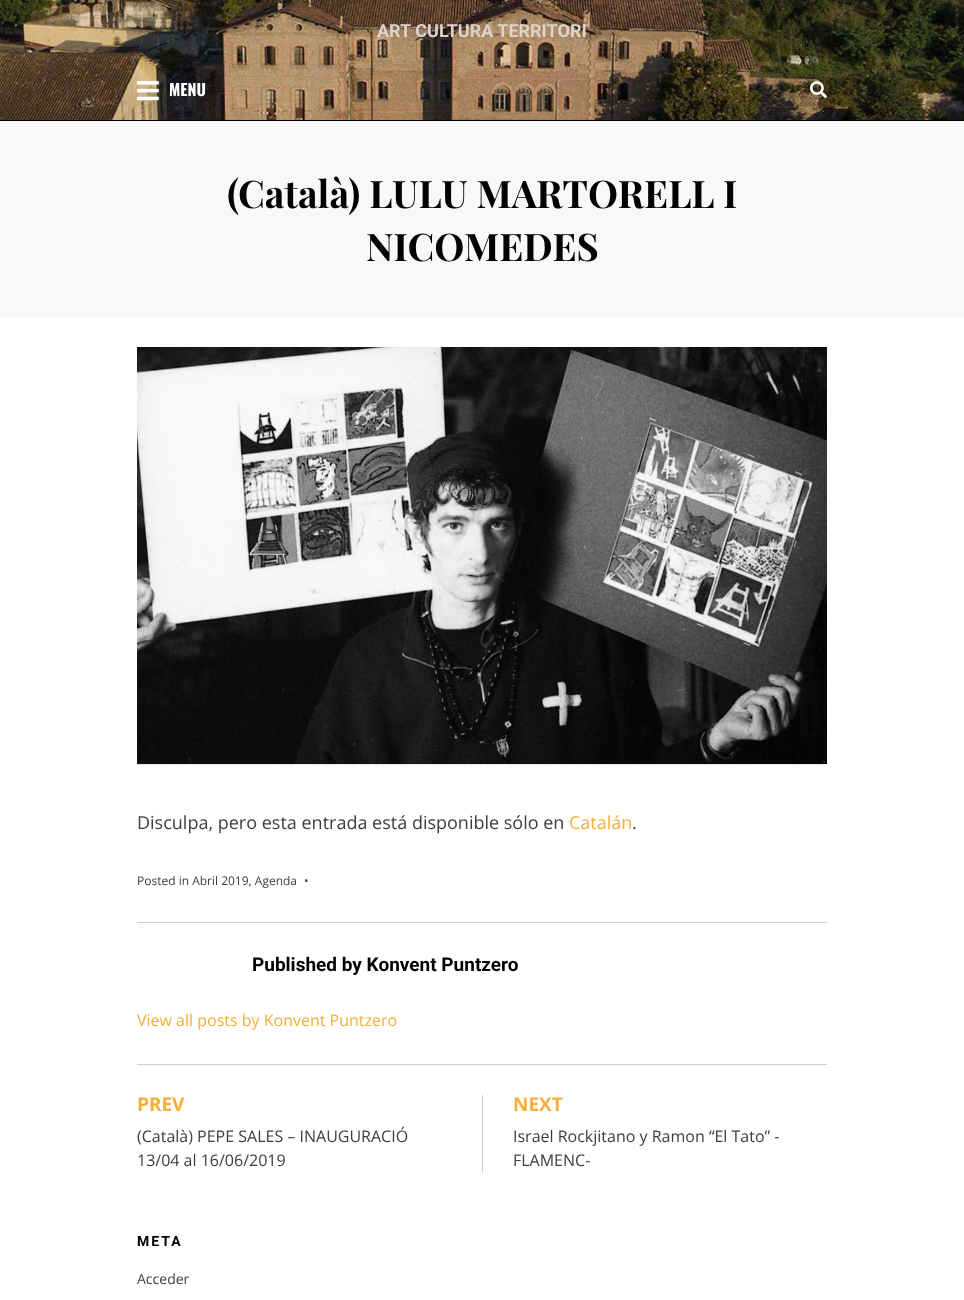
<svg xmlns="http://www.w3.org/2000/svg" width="964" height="1300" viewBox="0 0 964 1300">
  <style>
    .t1 { font: bold 18px Roboto; fill: #dcd4cb; }
    .t2 { font: bold 16px Oswald; fill: #fff; }
    .t3 { font: bold 38px Playfair Display; fill: #020202; }
    .t4 { font: 18px Open Sans; fill: #3d3d3d; }
    .t5 { font: 18px Open Sans; fill: #f9ae39; }
    .t6 { font: 12px Open Sans; fill: #3d3d3d; }
    .t7 { font: bold 19px Roboto; fill: #020202; }
    .t8 { font: 16px Open Sans; fill: #f9ae39; }
    .t9 { font: bold 19px Open Sans; fill: #f9ae39; }
    .t10 { font: 16px Open Sans; fill: #3d3d3d; }
    .t11 { font: bold 14px Roboto; letter-spacing: 2px; fill: #020202; }
    .t12 { font: 14px Open Sans; fill: #3d3d3d; }
  </style>
  <rect width="100%" height="100%" fill="#fff"/>
  <rect x="0" y="120" width="964" height="1" fill="#020202"/>
  <image x="0" y="0" width="964" height="120" href="images/1.png"/>
  <text x="377" y="37" class="t1">ART CULTURA TERRITORI</text>
  <image x="137" y="81" width="22" height="20" href="images/2.png"/>
  <text x="169" y="96" class="t2">MENU</text>
  <image x="810" y="81" width="17" height="18" href="images/3.png"/>
  <rect x="0" y="121" width="964" height="196" fill="#f8f8f8"/>
  <text x="227" y="208" class="t3">(Català) LULU MARTORELL I</text>
  <text x="366" y="261" class="t3">NICOMEDES</text>
  <image x="137" y="347" width="690" height="418" href="images/4.png"/>
  <text x="137" y="829" class="t4">Disculpa, pero esta entrada está disponible sólo en</text>
  <text x="569" y="829" class="t5">Catalán</text>
  <text x="632" y="829" class="t4">.</text>
  <text x="137" y="885" class="t6">Posted in Abril 2019, Agenda</text>
  <text x="304" y="885" class="t6">•</text>
  <rect x="137" y="922" width="690" height="1" fill="#ccc"/>
  <text x="252" y="971" class="t7">Published by Konvent Puntzero</text>
  <text x="137" y="1026" class="t8">View all posts by Konvent Puntzero</text>
  <rect x="137" y="1064" width="690" height="1" fill="#ccc"/>
  <text x="137" y="1111" class="t9">PREV</text>
  <text x="137" y="1142" class="t10">(Català) PEPE SALES – INAUGURACIÓ</text>
  <text x="137" y="1166" class="t10">13/04 al 16/06/2019</text>
  <rect x="482" y="1095" width="1" height="77" fill="#ccc"/>
  <text x="513" y="1111" class="t9">NEXT</text>
  <text x="513" y="1142" class="t10">Israel Rockjitano y Ramon “El Tato” -</text>
  <text x="513" y="1166" class="t10">FLAMENC-</text>
  <text x="137" y="1246" class="t11">META</text>
  <text x="137" y="1284" class="t12">Acceder</text>
</svg>
